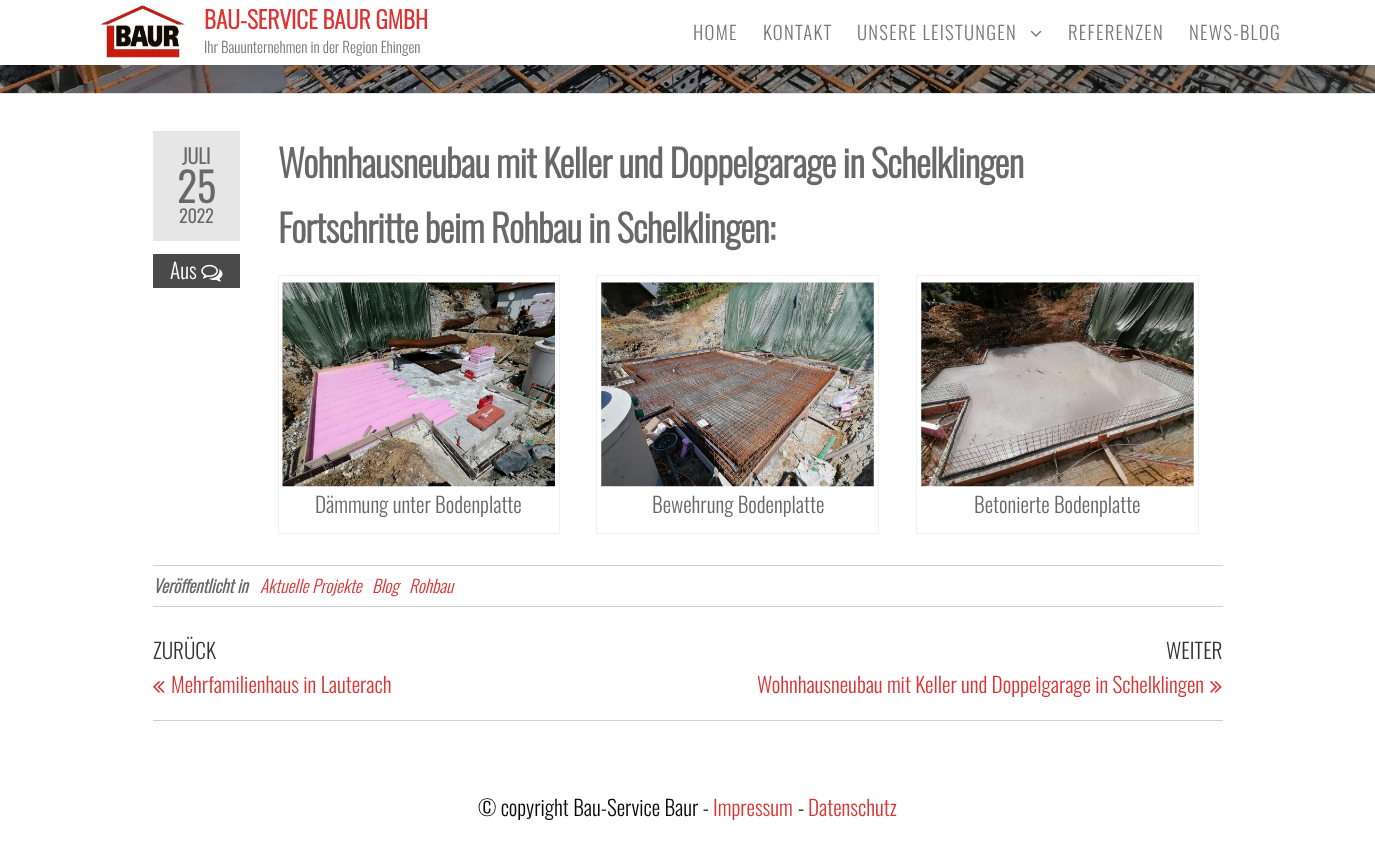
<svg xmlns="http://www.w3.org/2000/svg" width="1375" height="844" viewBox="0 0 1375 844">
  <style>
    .t1 { font: bold 23.75px Oswald; fill: #d33; }
    .t2 { font: 300 15px Oswald; fill: #777; }
    .t3 { font: 300 18.75px Oswald; letter-spacing: 1.25px; fill: #777; }
    .t4 { font: bold 20px Oswald; fill: #686868; }
    .t5 { font: bold 40px Oswald; fill: #686868; }
    .t6 { font: bold 17.5px Oswald; fill: #686868; }
    .t7 { font: 300 21.25px Oswald; fill: #fff; }
    .t8 { font: bold 37.5px Oswald; letter-spacing: -0.75px; fill: #686868; }
    .t9 { font: 300 21.25px Oswald; fill: #686868; }
    .t10 { font: italic bold 17.5px Oswald; fill: #686868; }
    .t11 { font: italic 300 17.5px Oswald; fill: #d33; }
    .t12 { font: 300 21.25px Oswald; fill: #333; }
    .t13 { font: 300 21.25px Oswald; fill: #d33; }
    .t14 { font: 300 21.25px Oswald; fill: #0a0a0a; }
  </style>
  <rect width="100%" height="100%" fill="#fff"/>
  <image x="0" y="65" width="1375" height="28" href="images/3.png"/>
  <rect x="0" y="93" width="1375" height="1" fill="#e2e2e2"/>
  <rect x="0" y="5" width="1375" height="65" fill="#0000001a" filter="blur(10px)"/>
  <rect x="0" y="0" width="1375" height="65" fill="#fff"/>
  <image x="100" y="4" width="85" height="55" href="images/1.png"/>
  <text x="204" y="29" class="t1">BAU-SERVICE BAUR GMBH</text>
  <text x="204" y="53" class="t2">Ihr Bauunternehmen in der Region Ehingen</text>
  <text x="693" y="40" class="t3">HOME</text>
  <text x="763" y="40" class="t3">KONTAKT</text>
  <text x="857" y="40" class="t3">UNSERE LEISTUNGEN</text>
  <image x="1030" y="30" width="12" height="7" href="images/2.png"/>
  <text x="1068" y="40" class="t3">REFERENZEN</text>
  <text x="1189" y="40" class="t3">NEWS-BLOG</text>
  <rect x="153" y="131" width="87" height="110" fill="#e6e6e6"/>
  <text x="182" y="164" class="t4">JULI</text>
  <text x="177" y="203" class="t5">25</text>
  <text x="179" y="223" class="t6">2022</text>
  <rect x="153" y="254" width="87" height="34" fill="#4a4a4a"/>
  <text x="170" y="279" class="t7">Aus</text>
  <image x="201" y="264" width="22" height="18" href="images/4.png"/>
  <text x="278" y="178" class="t8">Wohnhausneubau mit Keller und Doppelgarage in Schelklingen</text>
  <text x="278" y="243" class="t8">Fortschritte beim Rohbau in Schelklingen:</text>
  <rect x="278.5" y="275.5" width="281" height="258" fill="none" stroke="#f0f0f0"/>
  <image x="282" y="282" width="273" height="205" href="images/5.png"/>
  <text x="315" y="513" class="t9">Dämmung unter Bodenplatte</text>
  <rect x="596.5" y="275.5" width="282" height="258" fill="none" stroke="#f0f0f0"/>
  <image x="601" y="282" width="273" height="205" href="images/6.png"/>
  <text x="652" y="513" class="t9">Bewehrung Bodenplatte</text>
  <rect x="916.5" y="275.5" width="282" height="258" fill="none" stroke="#f0f0f0"/>
  <image x="921" y="282" width="273" height="205" href="images/7.png"/>
  <text x="974" y="513" class="t9">Betonierte Bodenplatte</text>
  <rect x="153" y="565" width="1070" height="1" fill="#d1d1d1"/>
  <rect x="153" y="606" width="1070" height="1" fill="#d1d1d1"/>
  <text x="153" y="593" class="t10">Veröffentlicht in</text>
  <text x="260" y="593" class="t11">Aktuelle Projekte</text>
  <text x="372" y="593" class="t11">Blog</text>
  <text x="409" y="593" class="t11">Rohbau</text>
  <rect x="153" y="720" width="1070" height="1" fill="#d1d1d1"/>
  <text x="153" y="659" class="t12">ZURÜCK</text>
  <image x="153" y="681" width="12" height="12" href="images/8.png"/>
  <text x="171" y="693" class="t13">Mehrfamilienhaus in Lauterach</text>
  <text x="1166" y="659" class="t12">WEITER</text>
  <text x="757" y="693" class="t13">Wohnhausneubau mit Keller und Doppelgarage in Schelklingen</text>
  <image x="1210" y="681" width="12" height="12" href="images/9.png"/>
  <text x="478" y="816" class="t14">© copyright Bau-Service Baur -</text>
  <text x="713" y="816" class="t13">Impressum</text>
  <text x="798" y="816" class="t14">-</text>
  <text x="808" y="816" class="t13">Datenschutz</text>
</svg>
